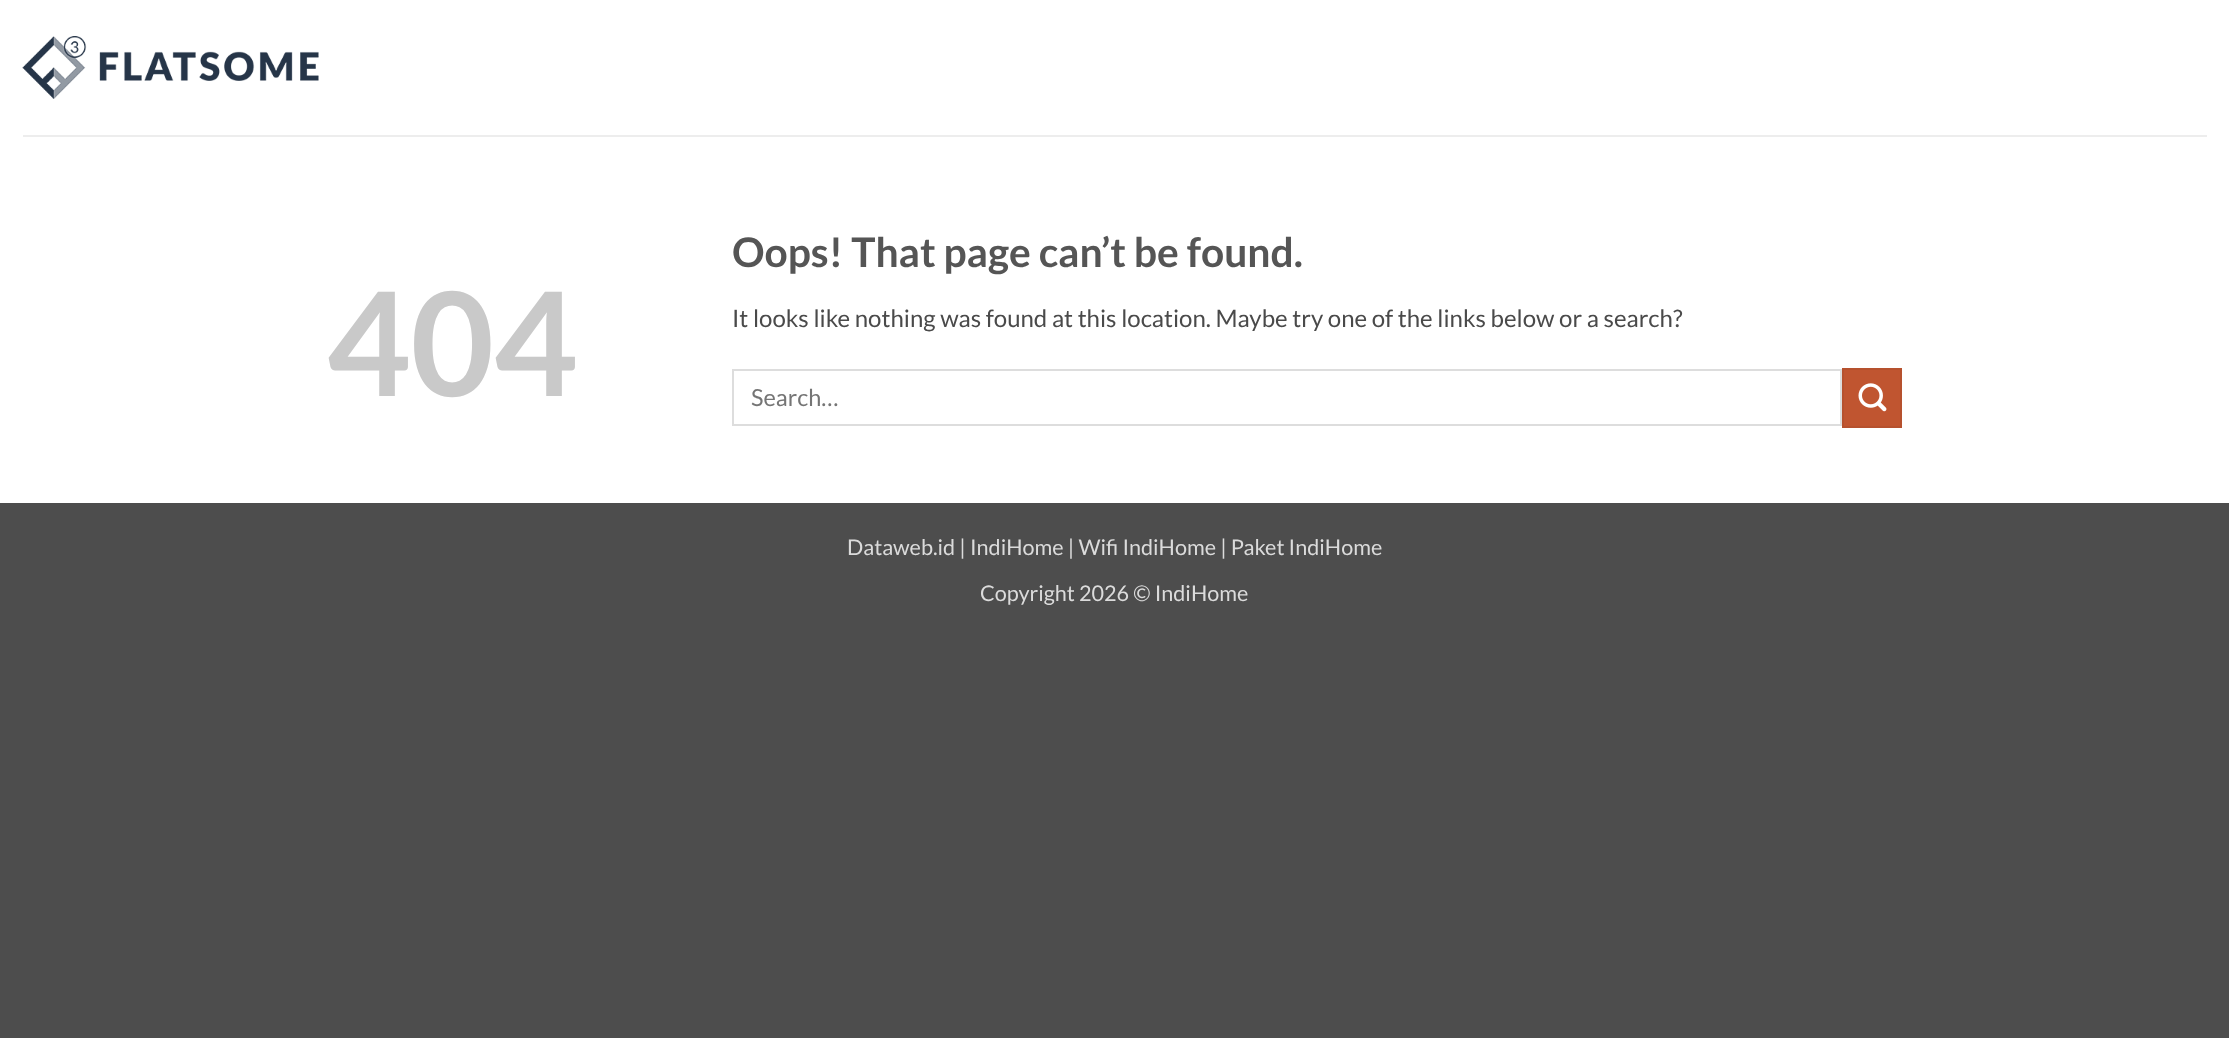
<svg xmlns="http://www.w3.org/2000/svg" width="2229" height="1038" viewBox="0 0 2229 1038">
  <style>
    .t1 { font: bold 144px Lato; fill: #c9c9c9; }
    .t2 { font: bold 40.75px Lato; fill: #555; }
    .t3 { font: 24px Lato; fill: #4a4a4a; }
    .t4 { font: 23.5px Lato; fill: #757575; }
    .t5 { font: 21.6px Lato; fill: #dbdbdb; }
  </style>
  <rect width="100%" height="100%" fill="#4d4d4d"/>
  <rect x="0" y="0" width="2229" height="503" fill="#fff"/>
  <image x="22" y="36" width="297" height="63" href="images/1.png"/>
  <rect x="23" y="135" width="2184" height="2" fill="#ededed"/>
  <text x="327" y="396" class="t1">404</text>
  <text x="732" y="267" class="t2">Oops! That page can’t be found.</text>
  <text x="732" y="327" class="t3">It looks like nothing was found at this location. Maybe try one of the links below or a search?</text>
  <rect x="733" y="370" width="1108" height="55" fill="none" stroke="#ddd" stroke-width="2"/>
  <text x="751" y="406" class="t4">Search…</text>
  <rect x="1843" y="369" width="58" height="58" fill="#c05530" stroke="#b6512e" stroke-width="2"/>
  <image x="1858" y="383" width="29" height="29" href="images/2.png"/>
  <text x="847" y="555" class="t5">Dataweb.id | IndiHome | Wifi IndiHome | Paket IndiHome</text>
  <text x="980" y="601" class="t5">Copyright 2026 © IndiHome</text>
</svg>
